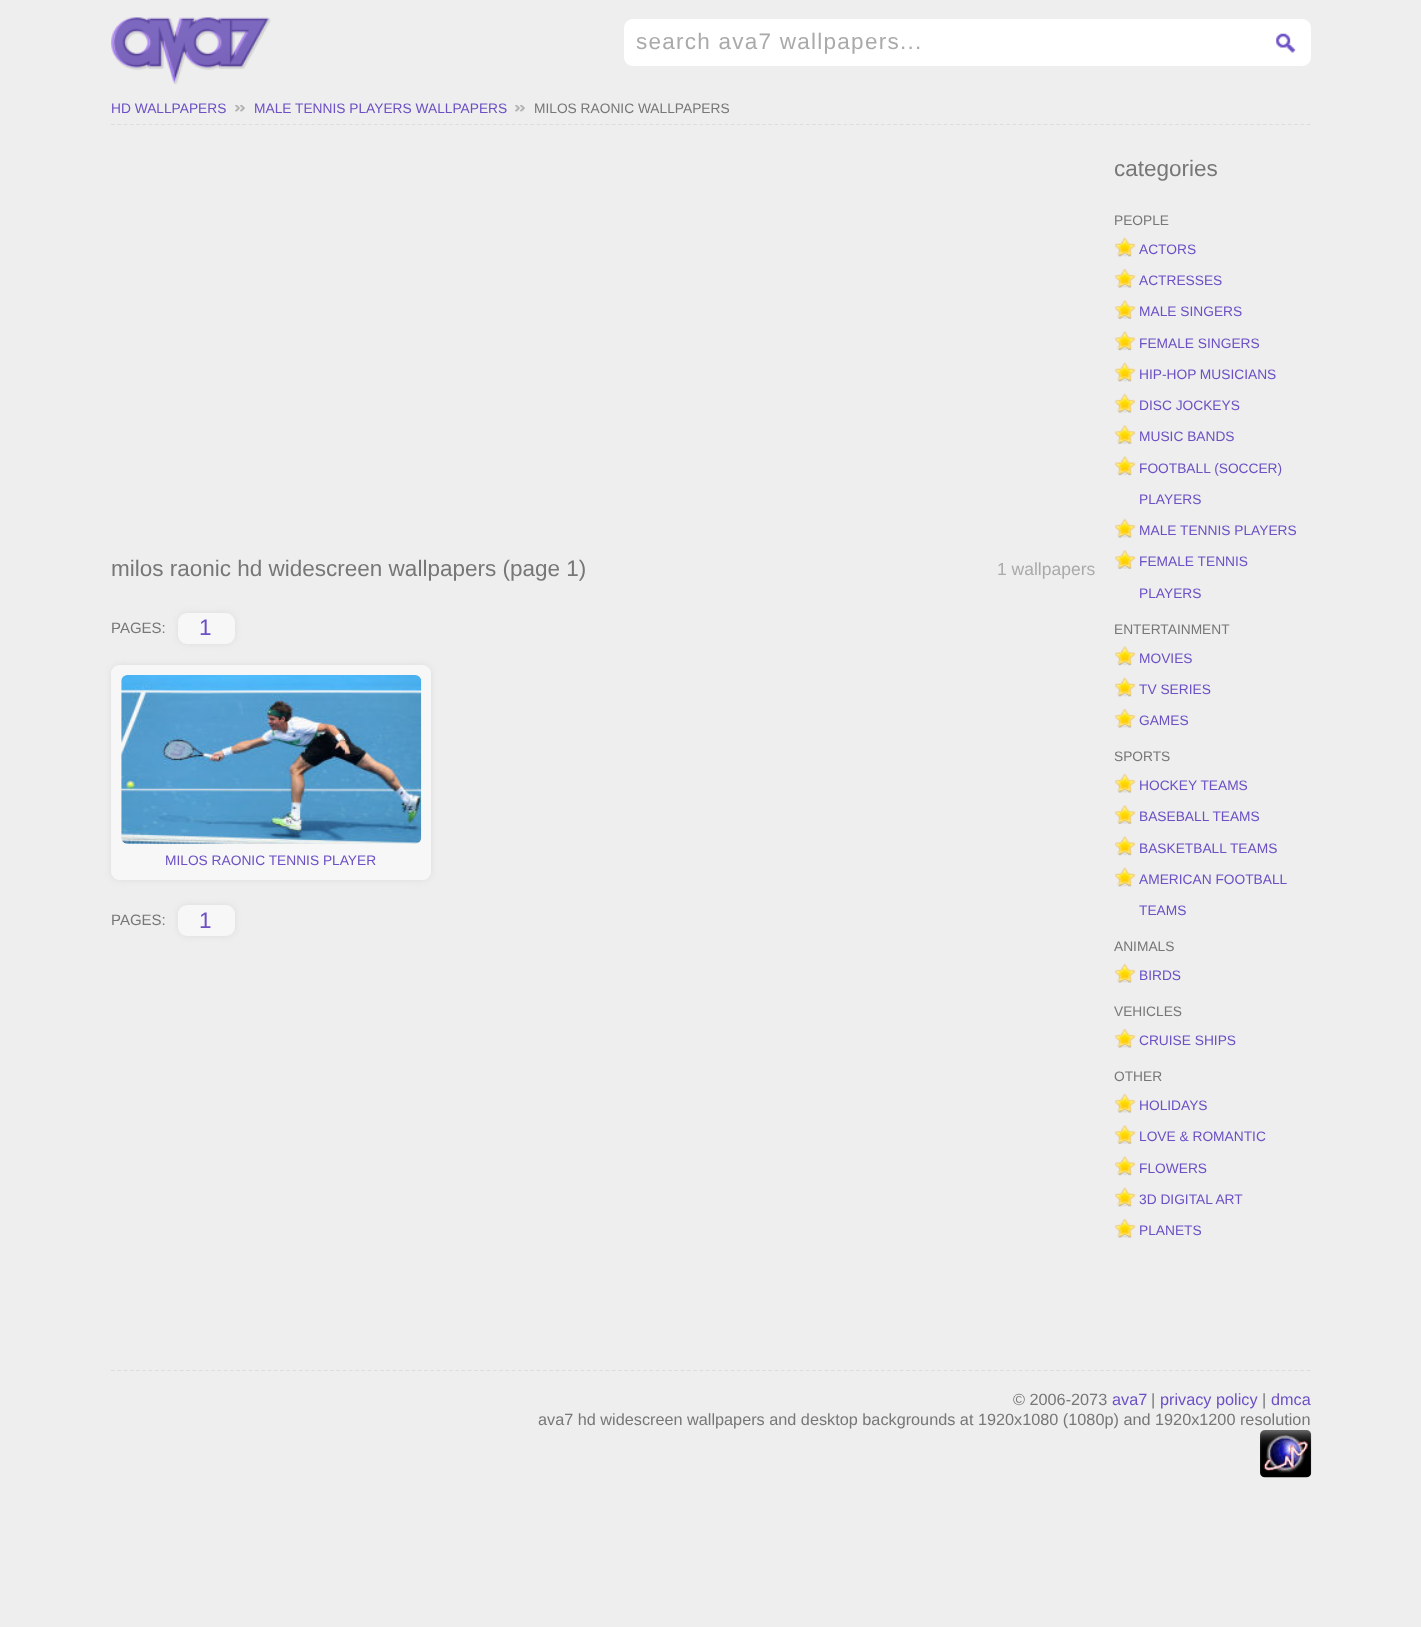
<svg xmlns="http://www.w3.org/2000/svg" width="1421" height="1627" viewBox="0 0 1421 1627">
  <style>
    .t1 { font: 22.5px Liberation Sans; letter-spacing: 1.25px; fill: #aaa; }
    .t2 { font: 13.75px Liberation Sans; fill: #6c50c4; }
    .t3 { font: 13.75px Liberation Sans; fill: #777; }
    .t4 { font: 22.5px Liberation Sans; fill: #777; }
    .t5 { font: 17.5px Liberation Sans; fill: #aaa; }
    .t6 { font: 15px Liberation Sans; fill: #777; }
    .t7 { font: 22.5px Liberation Sans; fill: #6c50c4; }
    .t8 { font: 16.25px Liberation Sans; fill: #777; }
    .t9 { font: 16.25px Liberation Sans; fill: #6c50c4; }
  </style>
  <rect width="100%" height="100%" fill="#eee"/>
  <image x="111" y="17" width="160" height="68" href="images/1.png"/>
  <path d="M633 19H1261V66H633C628 66 624 62 624 57V28C624 23 628 19 633 19Z" fill="#fff"/>
  <text x="636" y="49" class="t1">search ava7 wallpapers...</text>
  <path d="M1261 19H1302C1307 19 1311 23 1311 28V57C1311 62 1307 66 1302 66H1261Z" fill="#fff"/>
  <image x="1276" y="33" width="20" height="20" href="images/2.png"/>
  <path d="M111 124.5H1311" fill="none" stroke="#ddd" stroke-width="1.2" stroke-dasharray="3.75 2.51"/>
  <text x="111" y="113" class="t2">HD WALLPAPERS</text>
  <image x="235" y="105" width="10" height="7" href="images/3.png"/>
  <text x="254" y="113" class="t2">MALE TENNIS PLAYERS WALLPAPERS</text>
  <image x="515" y="105" width="10" height="7" href="images/4.png"/>
  <text x="534" y="113" class="t3">MILOS RAONIC WALLPAPERS</text>
  <text x="111" y="576" class="t4">milos raonic hd widescreen wallpapers (page 1)</text>
  <text x="997" y="575" class="t5">1 wallpapers</text>
  <text x="111" y="633" class="t6">PAGES:</text>
  <rect x="178" y="613" width="57" height="31" rx="9" fill="#ddd" filter="blur(3px)"/>
  <rect x="178" y="613" width="57" height="31" rx="9" fill="#f7f7f7"/>
  <text x="199" y="635" class="t7">1</text>
  <rect x="111" y="665" width="320" height="215" rx="9" fill="#ddd" filter="blur(3px)"/>
  <rect x="111" y="665" width="320" height="215" rx="9" fill="#f7f7f7"/>
  <path d="M120 665C115 665 111 669 111 674V871C111 876 115 880 120 880H422C427 880 431 876 431 871V674C431 669 427 665 422 665ZM121 675V870H421V675Z" fill="#f7f7f7" fill-rule="evenodd"/>
  <image x="121" y="675" width="301" height="169" href="images/5.png"/>
  <text x="165" y="865" class="t2">MILOS RAONIC TENNIS PLAYER</text>
  <text x="111" y="925" class="t6">PAGES:</text>
  <rect x="178" y="905" width="57" height="31" rx="9" fill="#ddd" filter="blur(3px)"/>
  <rect x="178" y="905" width="57" height="31" rx="9" fill="#f7f7f7"/>
  <text x="199" y="928" class="t7">1</text>
  <text x="1114" y="176" class="t4">categories</text>
  <text x="1114" y="225" class="t3">PEOPLE</text>
  <image x="1115" y="237" width="21" height="20" href="images/6.png"/>
  <text x="1139" y="254" class="t2">ACTORS</text>
  <image x="1115" y="268" width="21" height="20" href="images/7.png"/>
  <text x="1139" y="285" class="t2">ACTRESSES</text>
  <image x="1115" y="300" width="21" height="19" href="images/8.png"/>
  <text x="1139" y="316" class="t2">MALE SINGERS</text>
  <image x="1115" y="331" width="21" height="20" href="images/9.png"/>
  <text x="1139" y="348" class="t2">FEMALE SINGERS</text>
  <image x="1115" y="362" width="21" height="20" href="images/6.png"/>
  <text x="1139" y="379" class="t2">HIP-HOP MUSICIANS</text>
  <image x="1115" y="393" width="21" height="20" href="images/7.png"/>
  <text x="1139" y="410" class="t2">DISC JOCKEYS</text>
  <image x="1115" y="425" width="21" height="19" href="images/8.png"/>
  <text x="1139" y="441" class="t2">MUSIC BANDS</text>
  <image x="1115" y="456" width="21" height="20" href="images/9.png"/>
  <text x="1139" y="473" class="t2">FOOTBALL (SOCCER)</text>
  <text x="1139" y="504" class="t2">PLAYERS</text>
  <image x="1115" y="518" width="21" height="20" href="images/7.png"/>
  <text x="1139" y="535" class="t2">MALE TENNIS PLAYERS</text>
  <image x="1115" y="550" width="21" height="19" href="images/8.png"/>
  <text x="1139" y="566" class="t2">FEMALE TENNIS</text>
  <text x="1139" y="598" class="t2">PLAYERS</text>
  <text x="1114" y="634" class="t3">ENTERTAINMENT</text>
  <image x="1115" y="646" width="21" height="20" href="images/9.png"/>
  <text x="1139" y="663" class="t2">MOVIES</text>
  <image x="1115" y="677" width="21" height="20" href="images/6.png"/>
  <text x="1139" y="694" class="t2">TV SERIES</text>
  <image x="1115" y="708" width="21" height="20" href="images/7.png"/>
  <text x="1139" y="725" class="t2">GAMES</text>
  <text x="1114" y="761" class="t3">SPORTS</text>
  <image x="1115" y="773" width="21" height="20" href="images/7.png"/>
  <text x="1139" y="790" class="t2">HOCKEY TEAMS</text>
  <image x="1115" y="805" width="21" height="19" href="images/8.png"/>
  <text x="1139" y="821" class="t2">BASEBALL TEAMS</text>
  <image x="1115" y="836" width="21" height="20" href="images/9.png"/>
  <text x="1139" y="853" class="t2">BASKETBALL TEAMS</text>
  <image x="1115" y="867" width="21" height="20" href="images/6.png"/>
  <text x="1139" y="884" class="t2">AMERICAN FOOTBALL</text>
  <text x="1139" y="915" class="t2">TEAMS</text>
  <text x="1114" y="951" class="t3">ANIMALS</text>
  <image x="1115" y="963" width="21" height="20" href="images/7.png"/>
  <text x="1139" y="980" class="t2">BIRDS</text>
  <text x="1114" y="1016" class="t3">VEHICLES</text>
  <image x="1115" y="1028" width="21" height="20" href="images/10.png"/>
  <text x="1139" y="1045" class="t2">CRUISE SHIPS</text>
  <text x="1114" y="1081" class="t3">OTHER</text>
  <image x="1115" y="1093" width="21" height="20" href="images/7.png"/>
  <text x="1139" y="1110" class="t2">HOLIDAYS</text>
  <image x="1115" y="1125" width="21" height="19" href="images/8.png"/>
  <text x="1139" y="1141" class="t2">LOVE &amp; ROMANTIC</text>
  <image x="1115" y="1156" width="21" height="20" href="images/9.png"/>
  <text x="1139" y="1173" class="t2">FLOWERS</text>
  <image x="1115" y="1187" width="21" height="20" href="images/6.png"/>
  <text x="1139" y="1204" class="t2">3D DIGITAL ART</text>
  <image x="1115" y="1218" width="21" height="20" href="images/7.png"/>
  <text x="1139" y="1235" class="t2">PLANETS</text>
  <path d="M111 1370.5H1311" fill="none" stroke="#ddd" stroke-width="1.2" stroke-dasharray="3.75 2.51"/>
  <text x="1013" y="1405" class="t8">© 2006-2073</text>
  <text x="1112" y="1405" class="t9">ava7</text>
  <text x="1151" y="1405" class="t8">|</text>
  <text x="1160" y="1405" class="t9">privacy policy</text>
  <text x="1262" y="1405" class="t8">|</text>
  <text x="1271" y="1405" class="t9">dmca</text>
  <text x="538" y="1425" class="t8">ava7 hd widescreen wallpapers and desktop backgrounds at 1920x1080 (1080p) and 1920x1200 resolution</text>
  <image x="1260" y="1430" width="52" height="48" href="images/11.png"/>
</svg>
